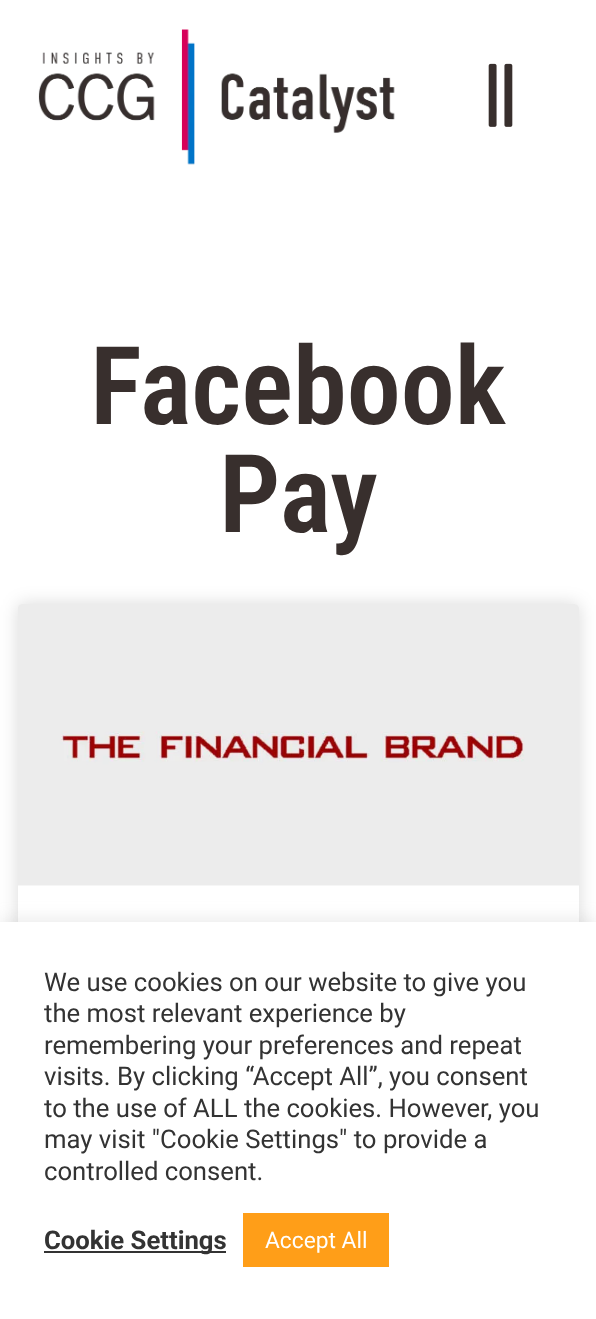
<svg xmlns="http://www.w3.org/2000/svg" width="596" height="1319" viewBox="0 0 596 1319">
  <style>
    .t1 { font: 600 108.5px Roboto Condensed; fill: #382f2d; }
    .t2 { font: 25.7px Roboto; fill: #333; }
    .t3 { font: bold 25.7px Roboto; fill: #333; }
    .t4 { font: 22.75px Roboto; fill: #fff; }
  </style>
  <rect width="100%" height="100%" fill="#fff"/>
  <image x="38" y="29" width="357" height="136" href="images/1.png"/>
  <image x="488" y="63" width="25" height="64" href="images/2.png"/>
  <text x="90" y="424" class="t1">Facebook</text>
  <text x="219" y="532" class="t1">Pay</text>
  <rect x="18" y="604" width="561" height="565" rx="5" fill="#00000026" filter="blur(9px)"/>
  <rect x="18" y="604" width="561" height="565" rx="5" fill="#fff"/>
  <image x="18" y="604" width="561" height="282" href="images/3.png"/>
  <rect x="0" y="921" width="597" height="397" fill="#acabab4d" filter="blur(9px)"/>
  <rect x="0" y="922" width="596" height="397" fill="#fff"/>
  <text x="44" y="991" class="t2">We use cookies on our website to give you</text>
  <text x="44" y="1022" class="t2">the most relevant experience by</text>
  <text x="44" y="1054" class="t2">remembering your preferences and repeat</text>
  <text x="44" y="1085" class="t2">visits. By clicking “Accept All”, you consent</text>
  <text x="44" y="1117" class="t2">to the use of ALL the cookies. However, you</text>
  <text x="44" y="1148" class="t2">may visit "Cookie Settings" to provide a</text>
  <text x="44" y="1180" class="t2">controlled consent.</text>
  <rect x="44" y="1251" width="182" height="2" fill="#333"/>
  <text x="44" y="1249" class="t3">Cookie Settings</text>
  <rect x="243" y="1213" width="146" height="54" fill="#ff9e18"/>
  <text x="265" y="1248" class="t4">Accept All</text>
</svg>
